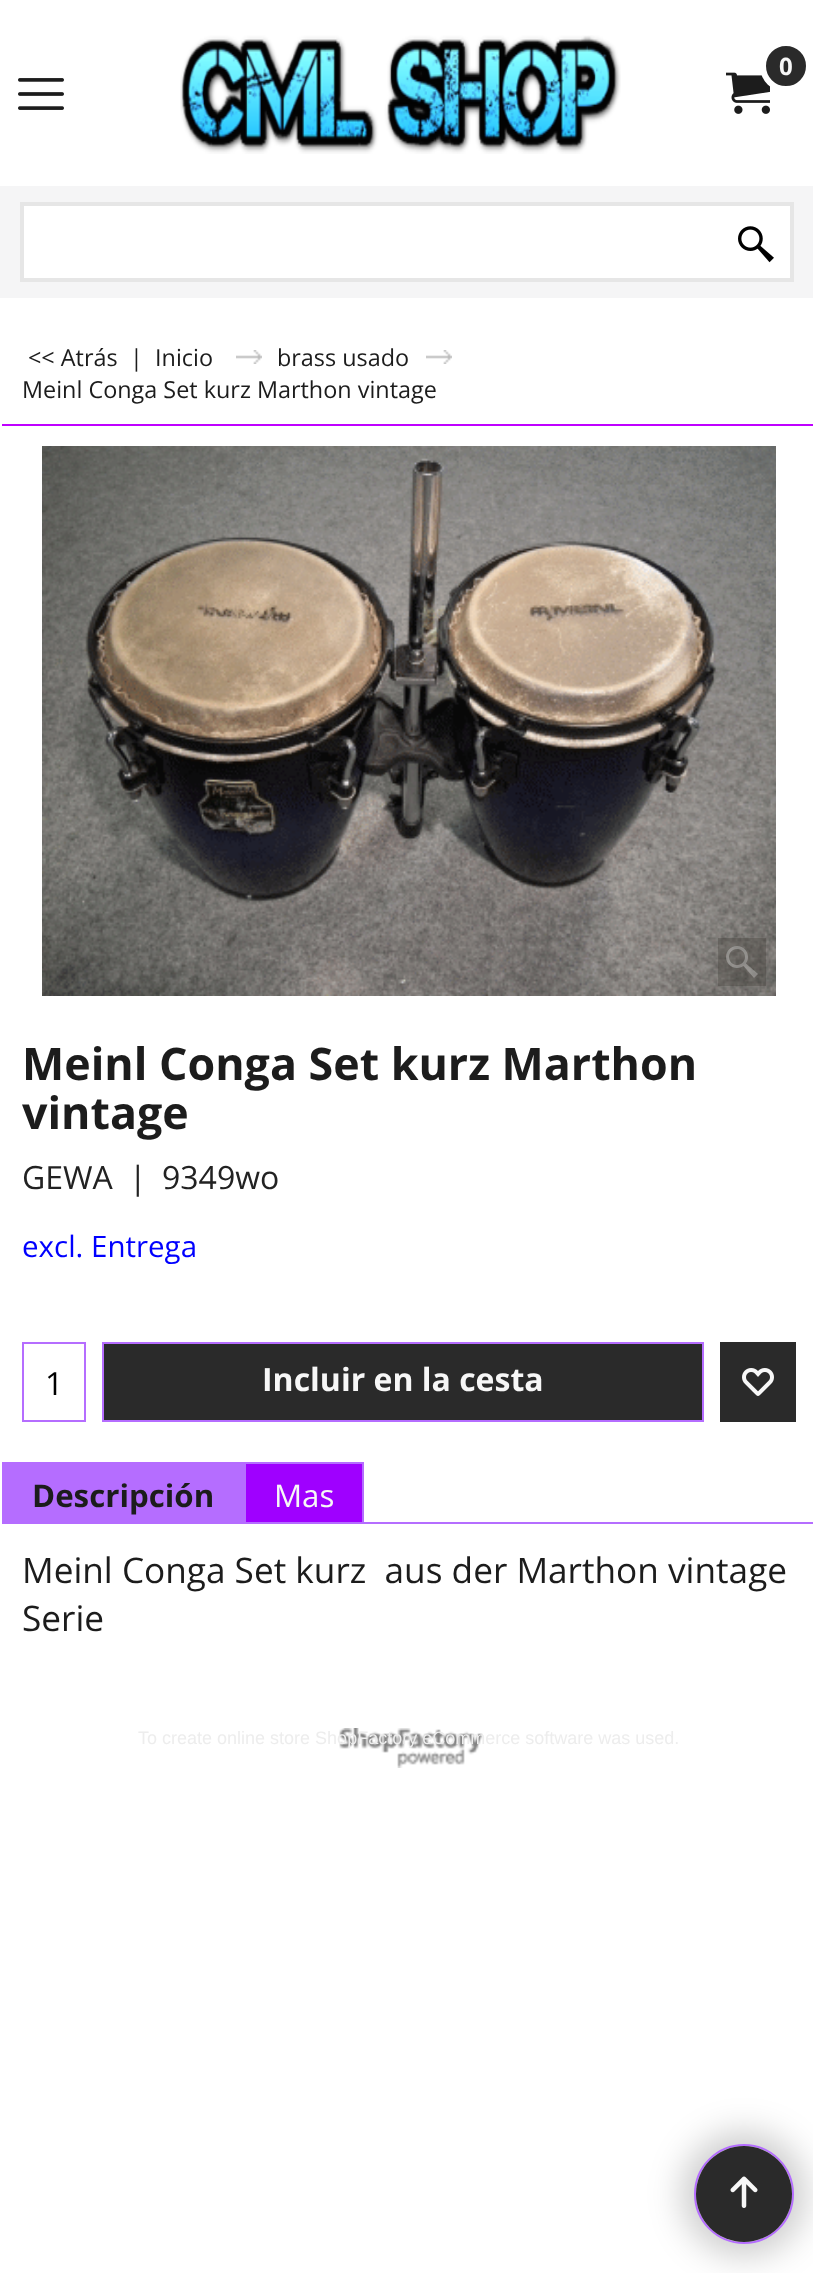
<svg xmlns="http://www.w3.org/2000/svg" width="813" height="2273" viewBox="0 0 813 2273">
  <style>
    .t1 { font: bold 24px Open Sans; fill: #f7f7f7; }
    .t2 { font: 23.4px Open Sans; fill: #1c1c1c; }
    .t3 { font: bold 44.75px Open Sans; fill: #1c1c1c; }
    .t4 { font: 32px Open Sans; fill: #222; }
    .t5 { font: 29.5px Open Sans; fill: #00f; }
    .t6 { font: 32px Open Sans; fill: #000; }
    .t7 { font: bold 32px Open Sans; fill: #f7f7f7; }
    .t8 { font: bold 31.25px Open Sans; fill: #1c1c1c; }
    .t9 { font: 31.25px Open Sans; fill: #f7f7f7; }
    .t10 { font: 35.2px Open Sans; fill: #1c1c1c; }
    .t11 { font: 18px Liberation Sans; fill: #ededed; }
  </style>
  <rect width="100%" height="100%" fill="#fff"/>
  <image x="180" y="35" width="441" height="119" href="images/1.png"/>
  <image x="726" y="72" width="44" height="42" href="images/2.png"/>
  <circle cx="786" cy="66" r="23" fill="#2a2a2a" stroke="#fff" stroke-width="6"/>
  <text x="779" y="75" class="t1">0</text>
  <image x="18" y="78" width="46" height="32" href="images/3.png"/>
  <rect x="0" y="186" width="813" height="112" fill="#f5f5f6"/>
  <rect x="22" y="204" width="770" height="76" fill="#fff" stroke="#e6e6e6" stroke-width="4"/>
  <image x="738" y="226" width="36" height="37" href="images/4.png"/>
  <rect x="2" y="424" width="811" height="2" fill="#bf00ff"/>
  <text x="28" y="366" class="t2">&lt;&lt; Atrás</text>
  <text x="130" y="366" class="t2">|</text>
  <text x="155" y="366" class="t2">Inicio</text>
  <image x="236" y="350" width="26" height="14" href="images/5.png"/>
  <text x="277" y="366" class="t2">brass usado</text>
  <image x="426" y="350" width="26" height="14" href="images/5.png"/>
  <text x="22" y="398" class="t2">Meinl Conga Set kurz Marthon vintage</text>
  <image x="42" y="446" width="734" height="550" href="images/6.png"/>
  <rect x="718" y="938" width="48" height="48" fill="#3836304d"/>
  <image x="726" y="946" width="32" height="32" href="images/7.png"/>
  <text x="22" y="1080" class="t3">Meinl Conga Set kurz Marthon</text>
  <text x="22" y="1129" class="t3">vintage</text>
  <text x="22" y="1189" class="t4">GEWA</text>
  <text x="129" y="1189" class="t4">|</text>
  <text x="162" y="1189" class="t4">9349wo</text>
  <text x="22" y="1257" class="t5">excl. Entrega</text>
  <rect x="23" y="1343" width="62" height="78" fill="none" stroke="#b56dff" stroke-width="2"/>
  <text x="45" y="1395" class="t6">1</text>
  <rect x="103" y="1343" width="600" height="78" fill="#2a2a2a" stroke="#b56dff" stroke-width="2"/>
  <text x="262" y="1391" class="t7">Incluir en la cesta</text>
  <rect x="720" y="1342" width="76" height="80" fill="#2a2a2a"/>
  <image x="742" y="1368" width="32" height="28" href="images/8.png"/>
  <rect x="2" y="1462" width="242" height="62" fill="#b56dff"/>
  <text x="32" y="1507" class="t8">Descripción</text>
  <rect x="246" y="1464" width="116" height="58" fill="#9f00ff"/>
  <rect x="244" y="1462" width="120" height="2" fill="#b56dff"/>
  <rect x="362" y="1462" width="2" height="60" fill="#b56dff"/>
  <rect x="244" y="1462" width="2" height="60" fill="#b56dff"/>
  <text x="274" y="1507" class="t9">Mas</text>
  <rect x="244" y="1522" width="569" height="2" fill="#b56dff"/>
  <text x="22" y="1583" class="t10" xml:space="preserve">Meinl Conga Set kurz  aus der Marthon vintage</text>
  <text x="22" y="1631" class="t10">Serie</text>
  <image x="339" y="1728" width="144" height="40" href="images/9.png"/>
  <text x="138" y="1744" class="t11">To create online store ShopFactory eCommerce software was used.</text>
  <rect x="682" y="2132" width="124" height="124" rx="62" fill="#00000033" filter="blur(17px)"/>
  <circle cx="744" cy="2194" r="49" fill="none" stroke="#b56dff" stroke-width="2"/>
  <circle cx="744" cy="2194" r="48" fill="#2a2a2a"/>
  <image x="730" y="2176" width="28" height="32" href="images/10.png"/>
</svg>
